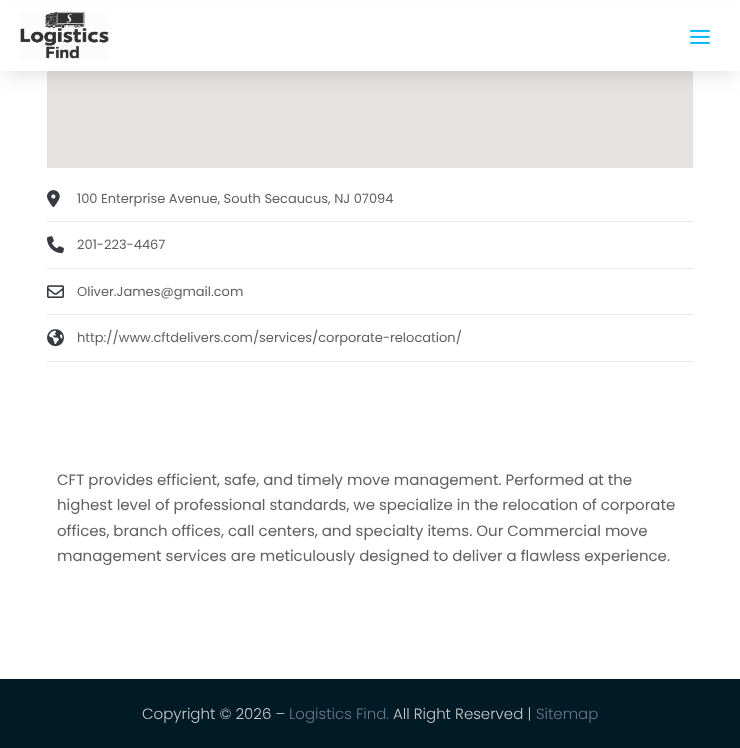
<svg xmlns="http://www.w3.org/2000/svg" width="740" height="748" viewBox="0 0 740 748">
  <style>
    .t1 { font: 13px Poppins; fill: #606060; }
    .t2 { font: 15px Poppins; fill: #606060; }
    .t3 { font: 300 15px Poppins; fill: #c9c9c9; }
    .t4 { font: 300 15px Poppins; fill: #6a7a89; }
  </style>
  <rect width="100%" height="100%" fill="#fff"/>
  <rect x="47" y="71" width="646" height="97" fill="#e5e3df"/>
  <rect x="6" y="18" width="728" height="59" fill="#0000001a" filter="blur(9px)"/>
  <rect x="0" y="6" width="740" height="65" fill="#fff"/>
  <image x="20" y="11" width="89" height="48" href="images/1.png"/>
  <image x="690" y="29" width="20" height="15" href="images/2.png"/>
  <rect x="47" y="221" width="646" height="1" fill="#e6e6e6"/>
  <image x="47" y="190" width="13" height="18" href="images/3.png"/>
  <text x="77" y="203" class="t1">100 Enterprise Avenue, South Secaucus, NJ 07094</text>
  <rect x="47" y="268" width="646" height="1" fill="#e6e6e6"/>
  <image x="47" y="236" width="17" height="18" href="images/4.png"/>
  <text x="77" y="249" class="t1">201-223-4467</text>
  <rect x="47" y="314" width="646" height="1" fill="#e6e6e6"/>
  <image x="47" y="285" width="17" height="13" href="images/5.png"/>
  <text x="77" y="296" class="t1">Oliver.James@gmail.com</text>
  <rect x="47" y="361" width="646" height="1" fill="#e6e6e6"/>
  <image x="47" y="329" width="17" height="18" href="images/6.png"/>
  <text x="77" y="342" class="t1">http://www.cftdelivers.com/services/corporate-relocation/</text>
  <text x="57" y="485" class="t2">CFT provides efficient, safe, and timely move management. Performed at the</text>
  <text x="57" y="510" class="t2">highest level of professional standards, we specialize in the relocation of corporate</text>
  <text x="57" y="536" class="t2">offices, branch offices, call centers, and specialty items. Our Commercial move</text>
  <text x="57" y="561" class="t2">management services are meticulously designed to deliver a flawless experience.</text>
  <rect x="0" y="679" width="740" height="69" fill="#001a26"/>
  <text x="142" y="719" class="t3">Copyright © 2026 –</text>
  <text x="289" y="719" class="t4">Logistics Find.</text>
  <text x="393" y="719" class="t3">All Right Reserved |</text>
  <text x="536" y="719" class="t4">Sitemap</text>
</svg>
